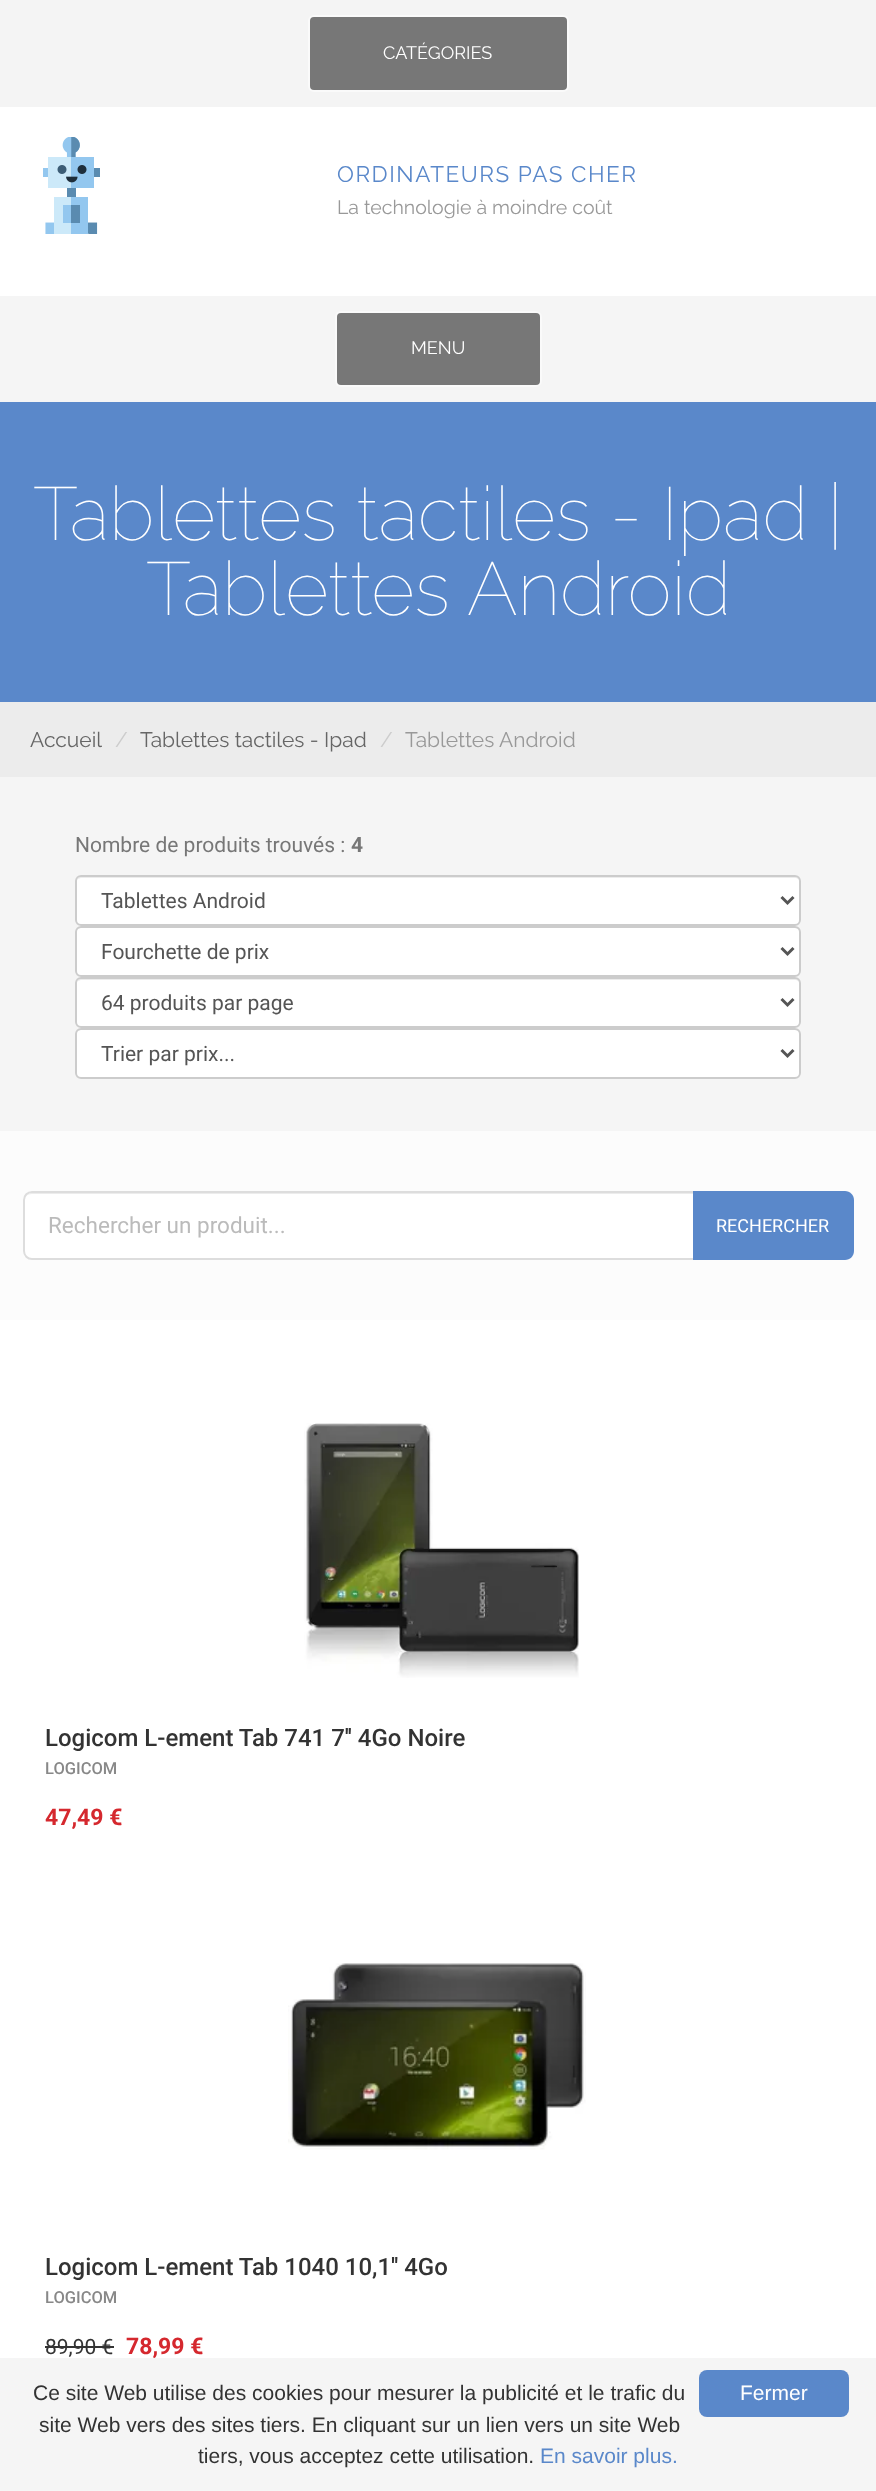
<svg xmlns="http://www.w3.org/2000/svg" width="876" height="2491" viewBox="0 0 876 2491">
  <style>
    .t1 { font: 18px Raleway; fill: #fff; }
    .t2 { font: 22.5px Raleway; letter-spacing: 1.5px; fill: #5a88ca; }
    .t3 { font: 19.5px Raleway; fill: #999; }
    .t4 { font: 100 75px Raleway; fill: #fff; }
    .t5 { font: 21px Raleway; fill: #666; }
    .t6 { font: 21px Raleway; fill: #ccc; }
    .t7 { font: 21px Raleway; fill: #999; }
    .t8 { font: 21px Roboto; fill: #777; }
    .t9 { font: bold 21px Roboto; fill: #777; }
    .t10 { font: 21px Roboto; fill: #555; }
    .t11 { font: 22.5px Roboto; fill: #bbb; }
    .t12 { font: 18px Roboto; fill: #fff; }
    .t13 { font: 500 24px Roboto; fill: #333; }
    .t14 { font: 500 16.5px Roboto; fill: #888; }
    .t15 { font: bold 23px Roboto; fill: #d5282e; }
    .t16 { font: 21px Roboto; fill: #333; }
    .t17 { font: 21px Liberation Sans; fill: #333; }
    .t18 { font: 21px Liberation Sans; fill: #5a88ca; }
    .t19 { font: 21px Liberation Sans; fill: #fff; }
  </style>
  <rect width="100%" height="100%" fill="#fff"/>
  <rect x="0" y="0" width="876" height="107" fill="#f4f4f4"/>
  <rect x="309" y="16" width="259" height="75" rx="5" fill="#777" stroke="#fafafa" stroke-width="2"/>
  <text x="383" y="59" class="t1">CATÉGORIES</text>
  <image x="43" y="137" width="57" height="97" href="images/1.png"/>
  <text x="337" y="182" class="t2">ORDINATEURS PAS CHER</text>
  <text x="337" y="214" class="t3">La technologie à moindre coût</text>
  <rect x="0" y="296" width="876" height="106" fill="#f5f5f5"/>
  <rect x="336" y="312" width="205" height="74" rx="5" fill="#777" stroke="#fafafa" stroke-width="2"/>
  <text x="411" y="354" class="t1">MENU</text>
  <rect x="0" y="402" width="876" height="300" fill="#5a88ca"/>
  <text x="33" y="540" class="t4">Tablettes tactiles - Ipad |</text>
  <text x="146" y="615" class="t4">Tablettes Android</text>
  <rect x="0" y="702" width="876" height="75" fill="#ececec"/>
  <text x="30" y="747" class="t5">Accueil</text>
  <text x="115" y="747" class="t6">/</text>
  <text x="140" y="747" class="t5">Tablettes tactiles - Ipad</text>
  <text x="380" y="747" class="t6">/</text>
  <text x="405" y="747" class="t7">Tablettes Android</text>
  <rect x="0" y="777" width="876" height="354" fill="#f5f5f5"/>
  <text x="75" y="852" class="t8">Nombre de produits trouvés :</text>
  <text x="351" y="852" class="t9">4</text>
  <rect x="75" y="875" width="726" height="51" rx="6" fill="#fff"/>
  <path d="M81 878H795C797 878 800 880 800 882V881C800 878 798 876 795 876H82C80 876 78 878 77 880C78 879 80 878 81 878Z" fill="#ececec"/>
  <rect x="76" y="876" width="724" height="49" rx="5" fill="none" stroke="#ccc" stroke-width="2"/>
  <path d="M781.5 897L787.5 903L793.5 897" fill="none" stroke="#555" stroke-width="3"/>
  <text x="101" y="908" class="t10">Tablettes Android</text>
  <rect x="75" y="926" width="726" height="51" rx="6" fill="#fff"/>
  <path d="M81 928H795C797 928 800 931 800 933V932C800 929 798 927 795 927H82C80 927 78 928 77 930C78 929 80 928 81 928Z" fill="#ececec"/>
  <rect x="76" y="927" width="724" height="49" rx="5" fill="none" stroke="#ccc" stroke-width="2"/>
  <path d="M781.5 948L787.5 954L793.5 948" fill="none" stroke="#555" stroke-width="3"/>
  <text x="101" y="959" class="t10">Fourchette de prix</text>
  <rect x="75" y="977" width="726" height="51" rx="6" fill="#fff"/>
  <path d="M81 980H795C797 980 800 982 800 984V983C800 980 798 978 795 978H82C80 978 78 980 77 982C78 981 80 980 81 980Z" fill="#ececec"/>
  <rect x="76" y="978" width="724" height="49" rx="5" fill="none" stroke="#ccc" stroke-width="2"/>
  <path d="M781.5 999L787.5 1005L793.5 999" fill="none" stroke="#555" stroke-width="3"/>
  <text x="101" y="1010" class="t10">64 produits par page</text>
  <rect x="75" y="1028" width="726" height="51" rx="6" fill="#fff"/>
  <path d="M81 1030H795C797 1030 800 1033 800 1035V1034C800 1031 798 1029 795 1029H82C80 1029 78 1030 77 1032C78 1031 80 1030 81 1030Z" fill="#ececec"/>
  <rect x="76" y="1029" width="724" height="49" rx="5" fill="none" stroke="#ccc" stroke-width="2"/>
  <path d="M781.5 1050L787.5 1056L793.5 1050" fill="none" stroke="#555" stroke-width="3"/>
  <text x="101" y="1061" class="t10">Trier par prix...</text>
  <rect x="0" y="1131" width="876" height="189" fill="#fcfcfc"/>
  <path d="M32 1191H695V1260H32C27 1260 23 1256 23 1251V1200C23 1195 27 1191 32 1191Z" fill="#fff"/>
  <path d="M32 1194H693V1193H32C28 1193 24 1197 24 1201V1202C24 1197 27 1194 32 1194Z" fill="#ececec"/>
  <path d="M32 1192H694V1259H32C27.5 1259 24 1255.5 24 1251V1200C24 1195.5 27.5 1192 32 1192Z" fill="none" stroke="#ddd" stroke-width="2"/>
  <text x="48" y="1233" class="t11">Rechercher un produit...</text>
  <path d="M693 1191H845C850 1191 854 1195 854 1200V1251C854 1256 850 1260 845 1260H693Z" fill="#5a88ca"/>
  <text x="716" y="1232" class="t12">RECHERCHER</text>
  <image x="304" y="1423" width="275" height="255" href="images/2.png"/>
  <text x="45" y="1746" class="t13">Logicom L-ement Tab 741 7'' 4Go Noire</text>
  <text x="45" y="1774" class="t14">LOGICOM</text>
  <text x="45" y="1825" class="t15">47,49 €</text>
  <image x="288" y="1963" width="298" height="187" href="images/3.png"/>
  <text x="45" y="2275" class="t13">Logicom L-ement Tab 1040 10,1'' 4Go</text>
  <text x="45" y="2303" class="t14">LOGICOM</text>
  <text x="45" y="2354" class="t16">89,90 €</text>
  <rect x="45" y="2346" width="69" height="2" fill="#333"/>
  <text x="126" y="2354" class="t15">78,99 €</text>
  <rect x="0" y="2358" width="876" height="133" fill="#f5f5f5"/>
  <text x="33" y="2400" class="t17">Ce site Web utilise des cookies pour mesurer la publicité et le trafic du</text>
  <text x="39" y="2432" class="t17">site Web vers des sites tiers. En cliquant sur un lien vers un site Web</text>
  <text x="198" y="2463" class="t17">tiers, vous acceptez cette utilisation.</text>
  <text x="540" y="2463" class="t18">En savoir plus.</text>
  <rect x="699" y="2370" width="150" height="47" rx="8" fill="#5a88ca"/>
  <text x="740" y="2400" class="t19">Fermer</text>
</svg>
